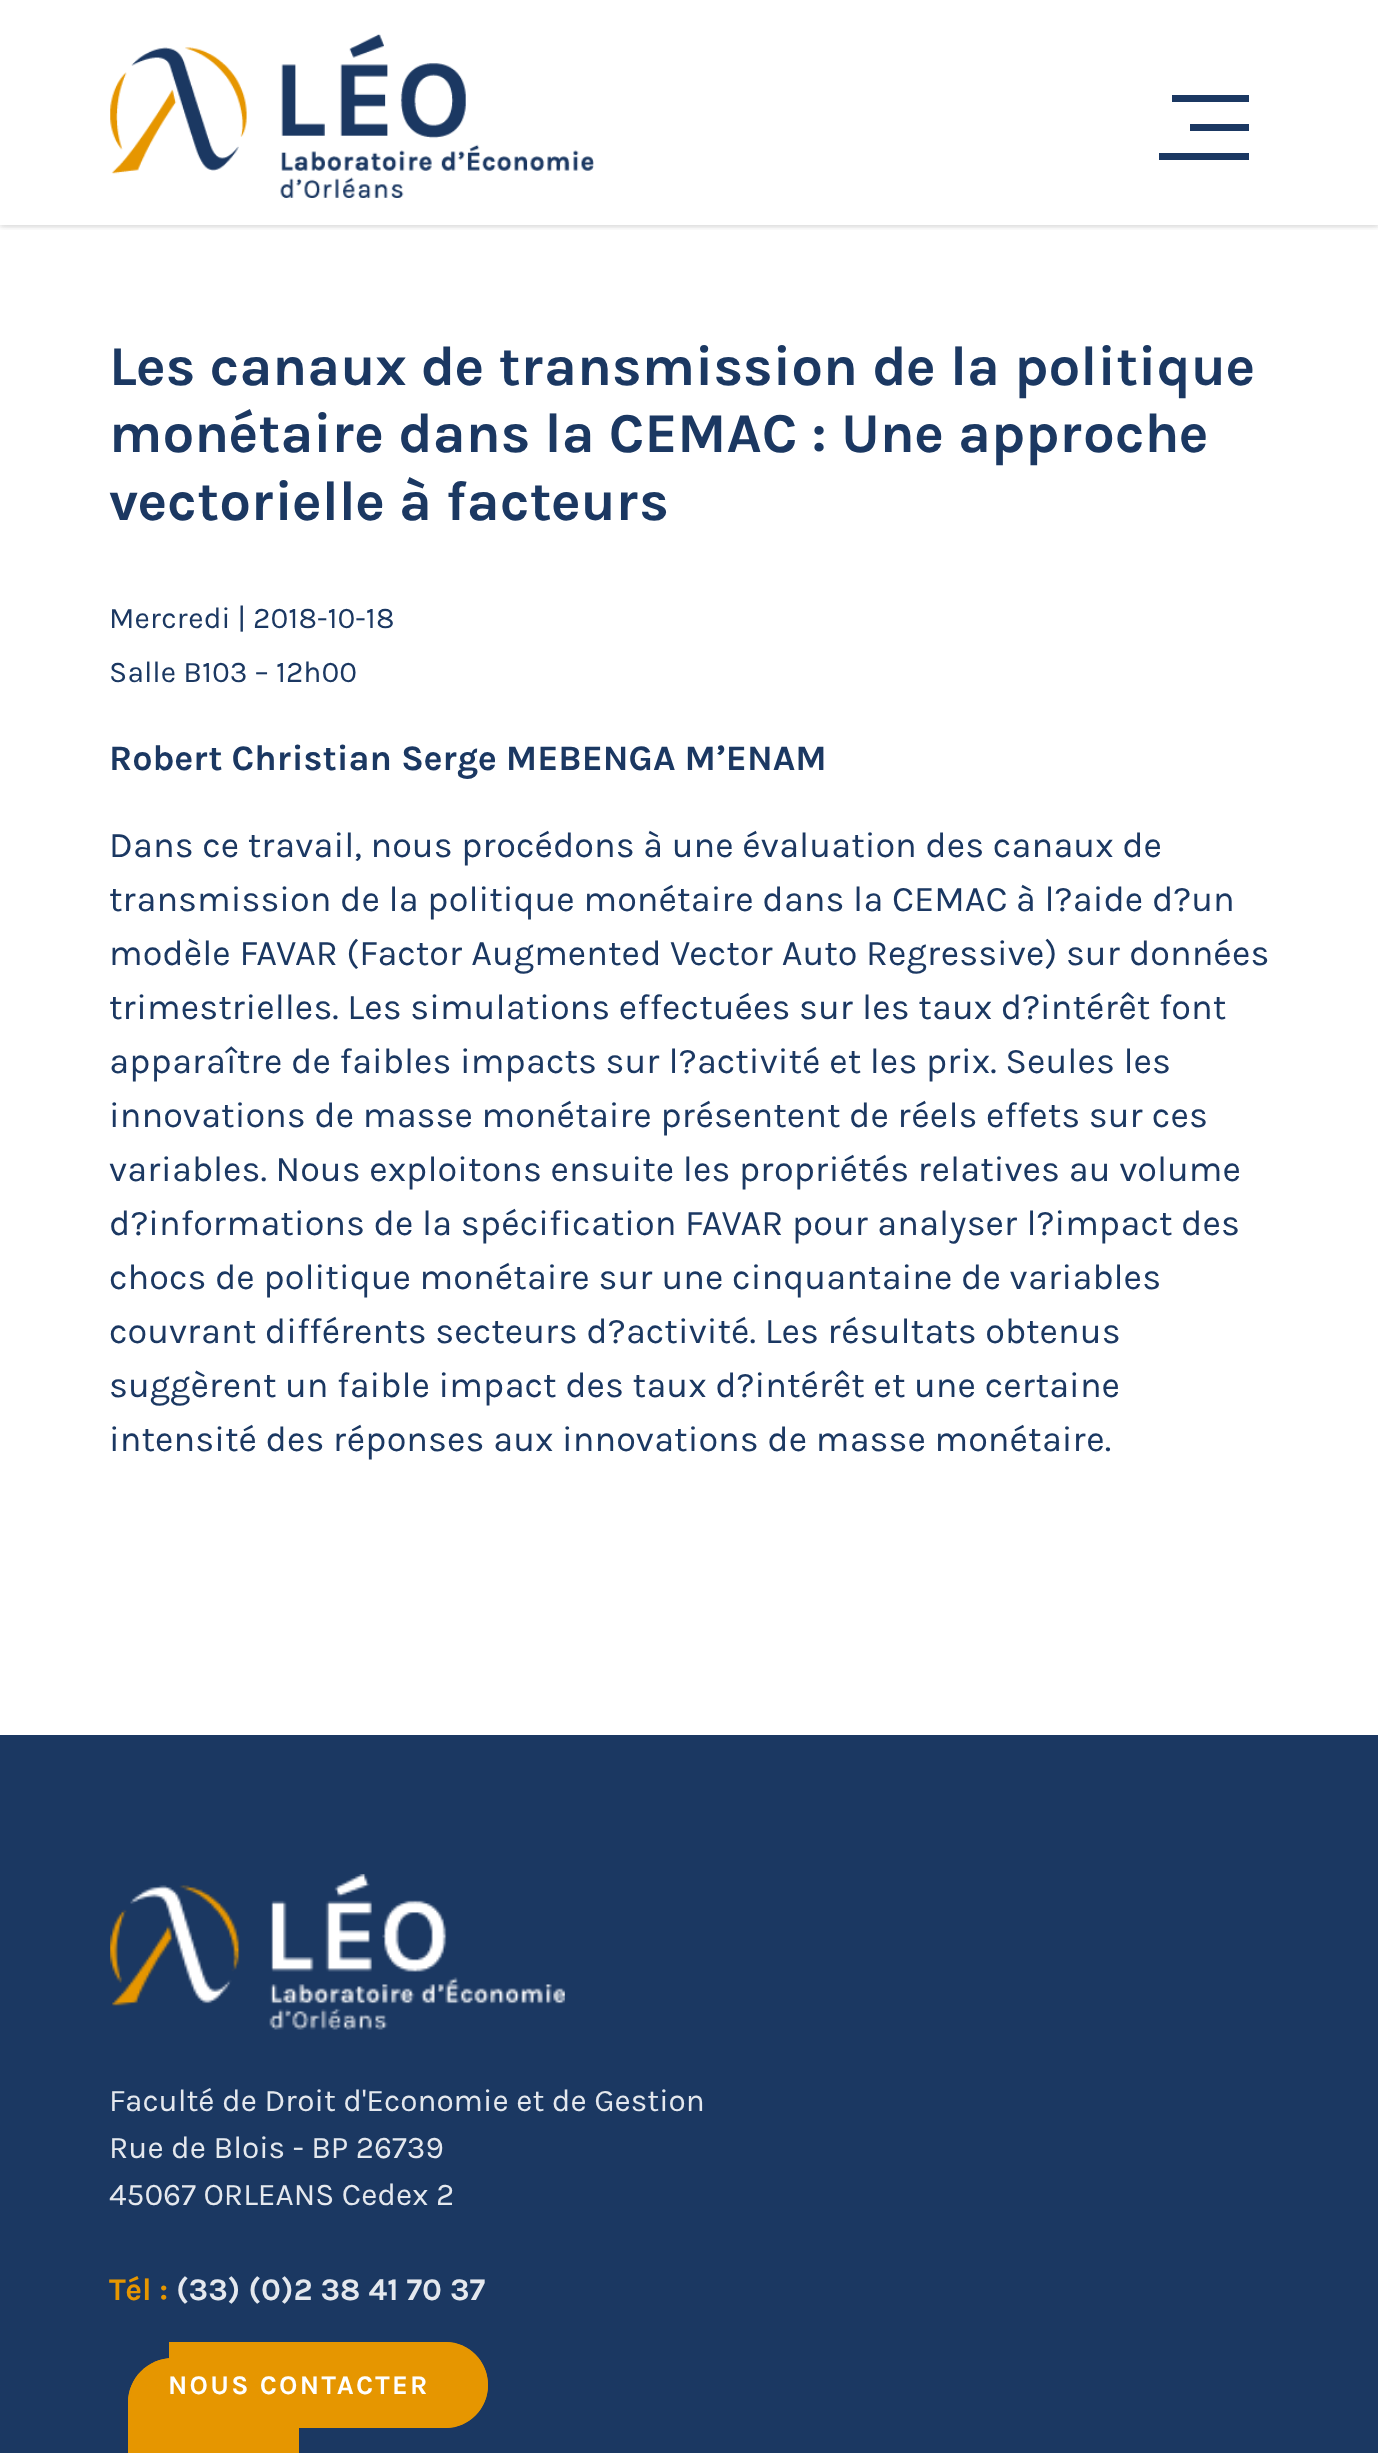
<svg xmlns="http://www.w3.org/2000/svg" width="1378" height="2453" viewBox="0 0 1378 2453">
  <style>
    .t1 { font: bold 56.25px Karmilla; fill: #1b3862; }
    .t2 { font: 30px Karmilla; fill: #1b3862; }
    .t3 { font: bold 36px Karmilla; fill: #1b3862; }
    .t4 { font: 36px Karmilla; fill: #1b3862; }
    .t5 { font: 31.5px Karmilla; fill: #e4e8ee; }
    .t6 { font: bold 31.5px Karmilla; fill: #e69600; }
    .t7 { font: bold 31.5px Karmilla; fill: #e4e8ee; }
    .t8 { font: bold 27px Karmilla; letter-spacing: 2.25px; fill: #fff; }
  </style>
  <defs>
    <clipPath id="clip1"><rect x="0" y="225" width="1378" height="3"/></clipPath>
    <clipPath id="clip2"><rect x="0" y="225" width="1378" height="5"/></clipPath>
  </defs>
  <rect width="100%" height="100%" fill="#fff"/>
  <g clip-path="url(#clip1)">
    <rect x="0" y="2" width="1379" height="225" fill="#0000000f" filter="blur(2px)"/>
  </g>
  <g clip-path="url(#clip2)">
    <rect x="0" y="2" width="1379" height="225" fill="#0000001a" filter="blur(3.5px)"/>
  </g>
  <image x="110" y="34" width="484" height="164" href="images/1.png"/>
  <rect x="1172" y="95" width="77" height="7" fill="#1b3862"/>
  <rect x="1190" y="124" width="59" height="7" fill="#1b3862"/>
  <rect x="1159" y="153" width="90" height="7" fill="#1b3862"/>
  <text x="109" y="385" class="t1">Les canaux de transmission de la politique</text>
  <text x="109" y="452" class="t1">monétaire dans la CEMAC : Une approche</text>
  <text x="109" y="520" class="t1">vectorielle à facteurs</text>
  <text x="109" y="628" class="t2">Mercredi | 2018-10-18</text>
  <text x="109" y="682" class="t2">Salle B103 – 12h00</text>
  <text x="109" y="770" class="t3">Robert Christian Serge MEBENGA M’ENAM</text>
  <text x="109" y="857" class="t4">Dans ce travail, nous procédons à une évaluation des canaux de</text>
  <text x="109" y="911" class="t4">transmission de la politique monétaire dans la CEMAC à l?aide d?un</text>
  <text x="109" y="965" class="t4">modèle FAVAR (Factor Augmented Vector Auto Regressive) sur données</text>
  <text x="109" y="1019" class="t4">trimestrielles. Les simulations effectuées sur les taux d?intérêt font</text>
  <text x="109" y="1073" class="t4">apparaître de faibles impacts sur l?activité et les prix. Seules les</text>
  <text x="109" y="1127" class="t4">innovations de masse monétaire présentent de réels effets sur ces</text>
  <text x="109" y="1181" class="t4">variables. Nous exploitons ensuite les propriétés relatives au volume</text>
  <text x="109" y="1235" class="t4">d?informations de la spécification FAVAR pour analyser l?impact des</text>
  <text x="109" y="1289" class="t4">chocs de politique monétaire sur une cinquantaine de variables</text>
  <text x="109" y="1343" class="t4">couvrant différents secteurs d?activité. Les résultats obtenus</text>
  <text x="109" y="1397" class="t4">suggèrent un faible impact des taux d?intérêt et une certaine</text>
  <text x="109" y="1451" class="t4">intensité des réponses aux innovations de masse monétaire.</text>
  <rect x="0" y="1735" width="1378" height="718" fill="#1b3862"/>
  <image x="110" y="1874" width="455" height="156" href="images/2.png"/>
  <text x="109" y="2111" class="t5">Faculté de Droit d'Economie et de Gestion</text>
  <text x="109" y="2158" class="t5">Rue de Blois - BP 26739</text>
  <text x="109" y="2205" class="t5">45067 ORLEANS Cedex 2</text>
  <text x="109" y="2300" class="t6">Tél :</text>
  <text x="176" y="2300" class="t7">(33) (0)2 38 41 70 37</text>
  <path d="M173 2358H299V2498H173C148 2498 128 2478 128 2453V2403C128 2378 148 2358 173 2358Z" fill="#e69600"/>
  <path d="M173 2358H299V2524H173C148 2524 128 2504 128 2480V2403C128 2378 148 2358 173 2358ZM173 2360H299V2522H173C150 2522 130 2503 130 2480V2403C130 2379 150 2360 173 2360Z" fill="#e69600" fill-rule="evenodd"/>
  <path d="M169 2342H445C468.5 2342 488 2361.5 488 2385C488 2408.5 468.5 2428 445 2428H169Z" fill="#e69600"/>
  <path d="M169 2342H446C469 2342 488 2361 488 2385C488 2409 469 2428 446 2428H169ZM169 2344H446C468 2344 486 2363 486 2385C486 2407 468 2426 446 2426H169Z" fill="#e69600" fill-rule="evenodd"/>
  <text x="168" y="2394" class="t8">NOUS CONTACTER</text>
</svg>
